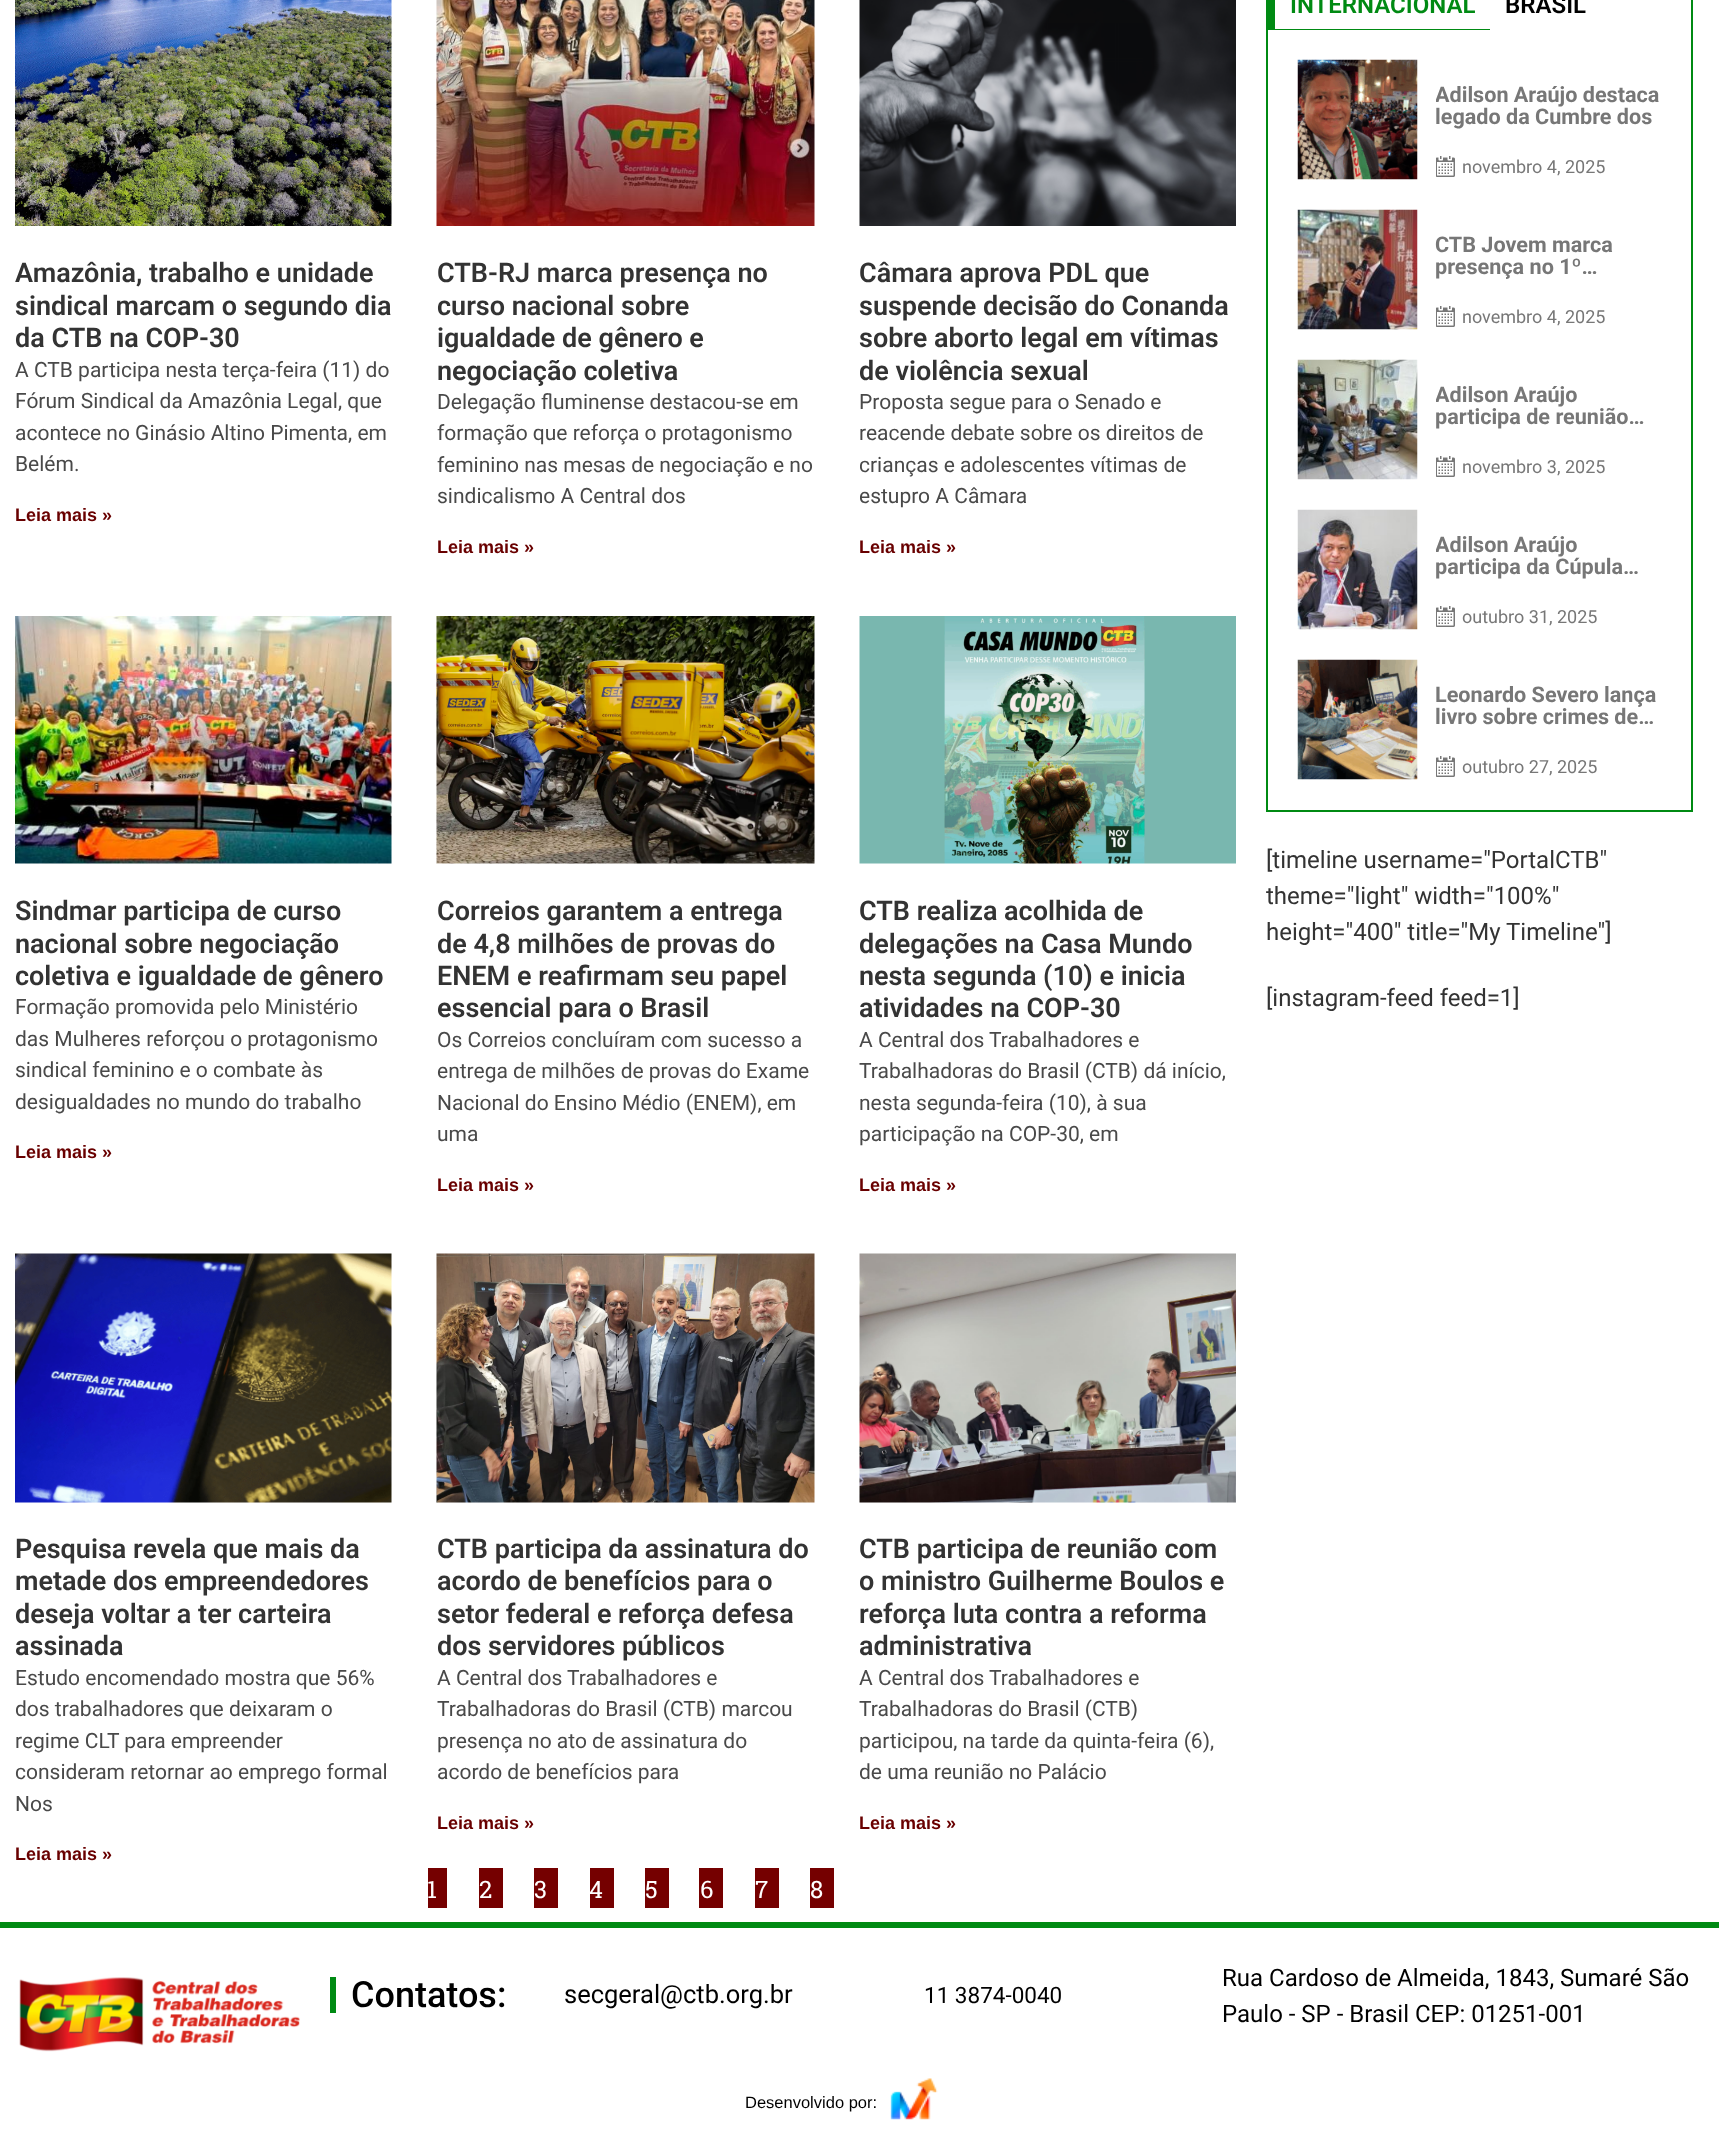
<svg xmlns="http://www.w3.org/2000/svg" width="1719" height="2155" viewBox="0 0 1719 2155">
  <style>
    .t1 { font: 600 27px Roboto; fill: #333; }
    .t2 { font: 21px Roboto; fill: #494949; }
    .t3 { font: bold 18px Liberation Sans; fill: #690000; }
    .t4 { font: 24px Roboto Slab; fill: #fff; }
    .t5 { font: 600 24px Roboto; fill: #008a13; }
    .t6 { font: 600 24px Roboto; fill: #000; }
    .t7 { font: bold 21.6px Roboto; fill: #777; }
    .t8 { font: 18px Roboto; fill: #777; }
    .t9 { font: 24px Roboto; fill: #333; }
    .t10 { font: 500 36px Roboto; fill: #000; }
    .t11 { font: 25.5px Roboto; fill: #000; }
    .t12 { font: 22.5px Roboto; fill: #000; }
    .t13 { font: 24px Roboto; fill: #000; }
    .t14 { font: 16.5px Liberation Sans; fill: #000; }
  </style>
  <defs>
    <clipPath id="clip1"><rect x="860" y="0" width="376" height="564"/></clipPath>
    <clipPath id="clip2"><rect x="860" y="617" width="376" height="585"/></clipPath>
    <clipPath id="clip3"><rect x="860" y="1254" width="376" height="617"/></clipPath>
    <clipPath id="clip4"><rect x="1436" y="86" width="225" height="43"/></clipPath>
    <clipPath id="clip5"><rect x="1436" y="386" width="225" height="43"/></clipPath>
    <clipPath id="clip6"><rect x="1436" y="536" width="225" height="43"/></clipPath>
    <clipPath id="clip7"><rect x="1436" y="686" width="225" height="43"/></clipPath>
  </defs>
  <rect width="100%" height="100%" fill="#fff"/>
  <image x="15" y="0" width="377" height="226" href="images/1.png"/>
  <text x="15" y="282" class="t1">Amazônia, trabalho e unidade</text>
  <text x="15" y="315" class="t1">sindical marcam o segundo dia</text>
  <text x="15" y="347" class="t1">da CTB na COP-30</text>
  <text x="15" y="377" class="t2">A CTB participa nesta terça-feira (11) do</text>
  <text x="15" y="408" class="t2">Fórum Sindical da Amazônia Legal, que</text>
  <text x="15" y="440" class="t2">acontece no Ginásio Altino Pimenta, em</text>
  <text x="15" y="471" class="t2">Belém.</text>
  <text x="15" y="521" class="t3">Leia mais »</text>
  <image x="436" y="0" width="379" height="226" href="images/2.png"/>
  <text x="437" y="282" class="t1">CTB-RJ marca presença no</text>
  <text x="437" y="315" class="t1">curso nacional sobre</text>
  <text x="437" y="347" class="t1">igualdade de gênero e</text>
  <text x="437" y="380" class="t1">negociação coletiva</text>
  <text x="437" y="409" class="t2">Delegação fluminense destacou-se em</text>
  <text x="437" y="440" class="t2">formação que reforça o protagonismo</text>
  <text x="437" y="472" class="t2">feminino nas mesas de negociação e no</text>
  <text x="437" y="503" class="t2">sindicalismo A Central dos</text>
  <text x="437" y="553" class="t3">Leia mais »</text>
  <image x="859" y="0" width="377" height="226" href="images/3.png"/>
  <text x="859" y="282" class="t1">Câmara aprova PDL que</text>
  <text x="859" y="315" class="t1">suspende decisão do Conanda</text>
  <text x="859" y="347" class="t1">sobre aborto legal em vítimas</text>
  <g clip-path="url(#clip1)">
    <text x="859" y="380" class="t1">de violência sexual</text>
  </g>
  <text x="859" y="409" class="t2">Proposta segue para o Senado e</text>
  <text x="859" y="440" class="t2">reacende debate sobre os direitos de</text>
  <g clip-path="url(#clip1)">
    <text x="859" y="472" class="t2">crianças e adolescentes vítimas de</text>
    <text x="859" y="503" class="t2">estupro A Câmara</text>
  </g>
  <text x="859" y="553" class="t3">Leia mais »</text>
  <image x="15" y="616" width="377" height="248" href="images/4.png"/>
  <text x="15" y="920" class="t1">Sindmar participa de curso</text>
  <text x="15" y="953" class="t1">nacional sobre negociação</text>
  <text x="15" y="985" class="t1">coletiva e igualdade de gênero</text>
  <text x="15" y="1014" class="t2">Formação promovida pelo Ministério</text>
  <text x="15" y="1046" class="t2">das Mulheres reforçou o protagonismo</text>
  <text x="15" y="1077" class="t2">sindical feminino e o combate às</text>
  <text x="15" y="1109" class="t2">desigualdades no mundo do trabalho</text>
  <text x="15" y="1158" class="t3">Leia mais »</text>
  <image x="436" y="616" width="379" height="248" href="images/5.png"/>
  <text x="437" y="920" class="t1">Correios garantem a entrega</text>
  <text x="437" y="953" class="t1">de 4,8 milhões de provas do</text>
  <text x="437" y="985" class="t1">ENEM e reafirmam seu papel</text>
  <text x="437" y="1017" class="t1">essencial para o Brasil</text>
  <text x="437" y="1047" class="t2">Os Correios concluíram com sucesso a</text>
  <text x="437" y="1078" class="t2">entrega de milhões de provas do Exame</text>
  <text x="437" y="1110" class="t2">Nacional do Ensino Médio (ENEM), em</text>
  <text x="437" y="1141" class="t2">uma</text>
  <text x="437" y="1191" class="t3">Leia mais »</text>
  <image x="859" y="616" width="377" height="248" href="images/6.png"/>
  <text x="859" y="920" class="t1">CTB realiza acolhida de</text>
  <g clip-path="url(#clip2)">
    <text x="859" y="953" class="t1">delegações na Casa Mundo</text>
  </g>
  <text x="859" y="985" class="t1">nesta segunda (10) e inicia</text>
  <text x="859" y="1017" class="t1">atividades na COP-30</text>
  <text x="859" y="1047" class="t2">A Central dos Trabalhadores e</text>
  <text x="859" y="1078" class="t2">Trabalhadoras do Brasil (CTB) dá início,</text>
  <text x="859" y="1110" class="t2">nesta segunda-feira (10), à sua</text>
  <text x="859" y="1141" class="t2">participação na COP-30, em</text>
  <text x="859" y="1191" class="t3">Leia mais »</text>
  <image x="15" y="1253" width="377" height="250" href="images/7.png"/>
  <text x="15" y="1558" class="t1">Pesquisa revela que mais da</text>
  <text x="15" y="1590" class="t1">metade dos empreendedores</text>
  <text x="15" y="1623" class="t1">deseja voltar a ter carteira</text>
  <text x="15" y="1655" class="t1">assinada</text>
  <text x="15" y="1685" class="t2">Estudo encomendado mostra que 56%</text>
  <text x="15" y="1716" class="t2">dos trabalhadores que deixaram o</text>
  <text x="15" y="1748" class="t2">regime CLT para empreender</text>
  <text x="15" y="1779" class="t2">consideram retornar ao emprego formal</text>
  <text x="15" y="1811" class="t2">Nos</text>
  <text x="15" y="1860" class="t3">Leia mais »</text>
  <image x="436" y="1253" width="379" height="250" href="images/8.png"/>
  <text x="437" y="1558" class="t1">CTB participa da assinatura do</text>
  <text x="437" y="1590" class="t1">acordo de benefícios para o</text>
  <text x="437" y="1623" class="t1">setor federal e reforça defesa</text>
  <text x="437" y="1655" class="t1">dos servidores públicos</text>
  <text x="437" y="1685" class="t2">A Central dos Trabalhadores e</text>
  <text x="437" y="1716" class="t2">Trabalhadoras do Brasil (CTB) marcou</text>
  <text x="437" y="1748" class="t2">presença no ato de assinatura do</text>
  <text x="437" y="1779" class="t2">acordo de benefícios para</text>
  <text x="437" y="1829" class="t3">Leia mais »</text>
  <image x="859" y="1253" width="377" height="250" href="images/9.png"/>
  <text x="859" y="1558" class="t1">CTB participa de reunião com</text>
  <g clip-path="url(#clip3)">
    <text x="859" y="1590" class="t1">o ministro Guilherme Boulos e</text>
  </g>
  <text x="859" y="1623" class="t1">reforça luta contra a reforma</text>
  <text x="859" y="1655" class="t1">administrativa</text>
  <text x="859" y="1685" class="t2">A Central dos Trabalhadores e</text>
  <text x="859" y="1716" class="t2">Trabalhadoras do Brasil (CTB)</text>
  <text x="859" y="1748" class="t2">participou, na tarde da quinta-feira (6),</text>
  <g clip-path="url(#clip3)">
    <text x="859" y="1779" class="t2">de uma reunião no Palácio</text>
  </g>
  <text x="859" y="1829" class="t3">Leia mais »</text>
  <rect x="428" y="1868" width="19" height="40" fill="#750000"/>
  <text x="427" y="1898" class="t4">1</text>
  <rect x="479" y="1868" width="24" height="40" fill="#750000"/>
  <text x="479" y="1898" class="t4">2</text>
  <rect x="534" y="1868" width="24" height="40" fill="#750000"/>
  <text x="534" y="1898" class="t4">3</text>
  <rect x="590" y="1868" width="24" height="40" fill="#750000"/>
  <text x="589" y="1898" class="t4">4</text>
  <rect x="645" y="1868" width="24" height="40" fill="#750000"/>
  <text x="645" y="1898" class="t4">5</text>
  <rect x="699" y="1868" width="24" height="40" fill="#750000"/>
  <text x="700" y="1898" class="t4">6</text>
  <rect x="755" y="1868" width="24" height="40" fill="#750000"/>
  <text x="755" y="1898" class="t4">7</text>
  <rect x="810" y="1868" width="24" height="40" fill="#750000"/>
  <text x="810" y="1898" class="t4">8</text>
  <rect x="1691" y="0" width="2" height="812" fill="#008a13"/>
  <rect x="1266" y="810" width="426" height="2" fill="#008a13"/>
  <rect x="1266" y="0" width="2" height="812" fill="#008a13"/>
  <rect x="1268" y="29" width="222" height="1" fill="#008a13"/>
  <rect x="1268" y="0" width="7" height="30" fill="#008a13"/>
  <text x="1290" y="13" class="t5">INTERNACIONAL</text>
  <text x="1505" y="13" class="t6">BRASIL</text>
  <image x="1297" y="59" width="121" height="121" href="images/10.png"/>
  <g clip-path="url(#clip4)">
    <text x="1435" y="102" class="t7">Adilson Araújo destaca</text>
  </g>
  <text x="1435" y="124" class="t7">legado da Cumbre dos</text>
  <image x="1436" y="156" width="19" height="21" href="images/11.png"/>
  <text x="1462" y="173" class="t8">novembro 4, 2025</text>
  <image x="1297" y="209" width="121" height="121" href="images/12.png"/>
  <text x="1435" y="252" class="t7">CTB Jovem marca</text>
  <text x="1435" y="274" class="t7">presença no 1º…</text>
  <image x="1436" y="306" width="19" height="21" href="images/11.png"/>
  <text x="1462" y="323" class="t8">novembro 4, 2025</text>
  <image x="1297" y="359" width="121" height="121" href="images/13.png"/>
  <g clip-path="url(#clip5)">
    <text x="1435" y="402" class="t7">Adilson Araújo</text>
  </g>
  <text x="1435" y="424" class="t7">participa de reunião…</text>
  <image x="1436" y="456" width="19" height="21" href="images/11.png"/>
  <text x="1462" y="473" class="t8">novembro 3, 2025</text>
  <image x="1297" y="509" width="121" height="121" href="images/14.png"/>
  <g clip-path="url(#clip6)">
    <text x="1435" y="552" class="t7">Adilson Araújo</text>
  </g>
  <text x="1435" y="574" class="t7">participa da Cúpula…</text>
  <image x="1436" y="606" width="19" height="21" href="images/11.png"/>
  <text x="1462" y="623" class="t8">outubro 31, 2025</text>
  <image x="1297" y="659" width="121" height="121" href="images/15.png"/>
  <g clip-path="url(#clip7)">
    <text x="1435" y="702" class="t7">Leonardo Severo lança</text>
  </g>
  <text x="1435" y="724" class="t7">livro sobre crimes de…</text>
  <image x="1436" y="756" width="19" height="21" href="images/11.png"/>
  <text x="1462" y="773" class="t8">outubro 27, 2025</text>
  <text x="1266" y="868" class="t9">[timeline username="PortalCTB"</text>
  <text x="1266" y="904" class="t9">theme="light" width="100%"</text>
  <text x="1266" y="940" class="t9">height="400" title="My Timeline"]</text>
  <text x="1266" y="1006" class="t9">[instagram-feed feed=1]</text>
  <rect x="0" y="1922" width="1719" height="6" fill="#008a13"/>
  <image x="19" y="1977" width="281" height="75" href="images/16.png"/>
  <rect x="330" y="1977" width="6" height="36" fill="#008a13"/>
  <text x="351" y="2007" class="t10">Contatos:</text>
  <text x="564" y="2003" class="t11">secgeral@ctb.org.br</text>
  <text x="924" y="2003" class="t12">11 3874-0040</text>
  <text x="1222" y="1986" class="t13">Rua Cardoso de Almeida, 1843, Sumaré São</text>
  <text x="1222" y="2022" class="t13">Paulo - SP - Brasil CEP: 01251-001</text>
  <text x="745" y="2108" class="t14">Desenvolvido por:</text>
  <image x="890" y="2078" width="48" height="42" href="images/17.png"/>
</svg>
